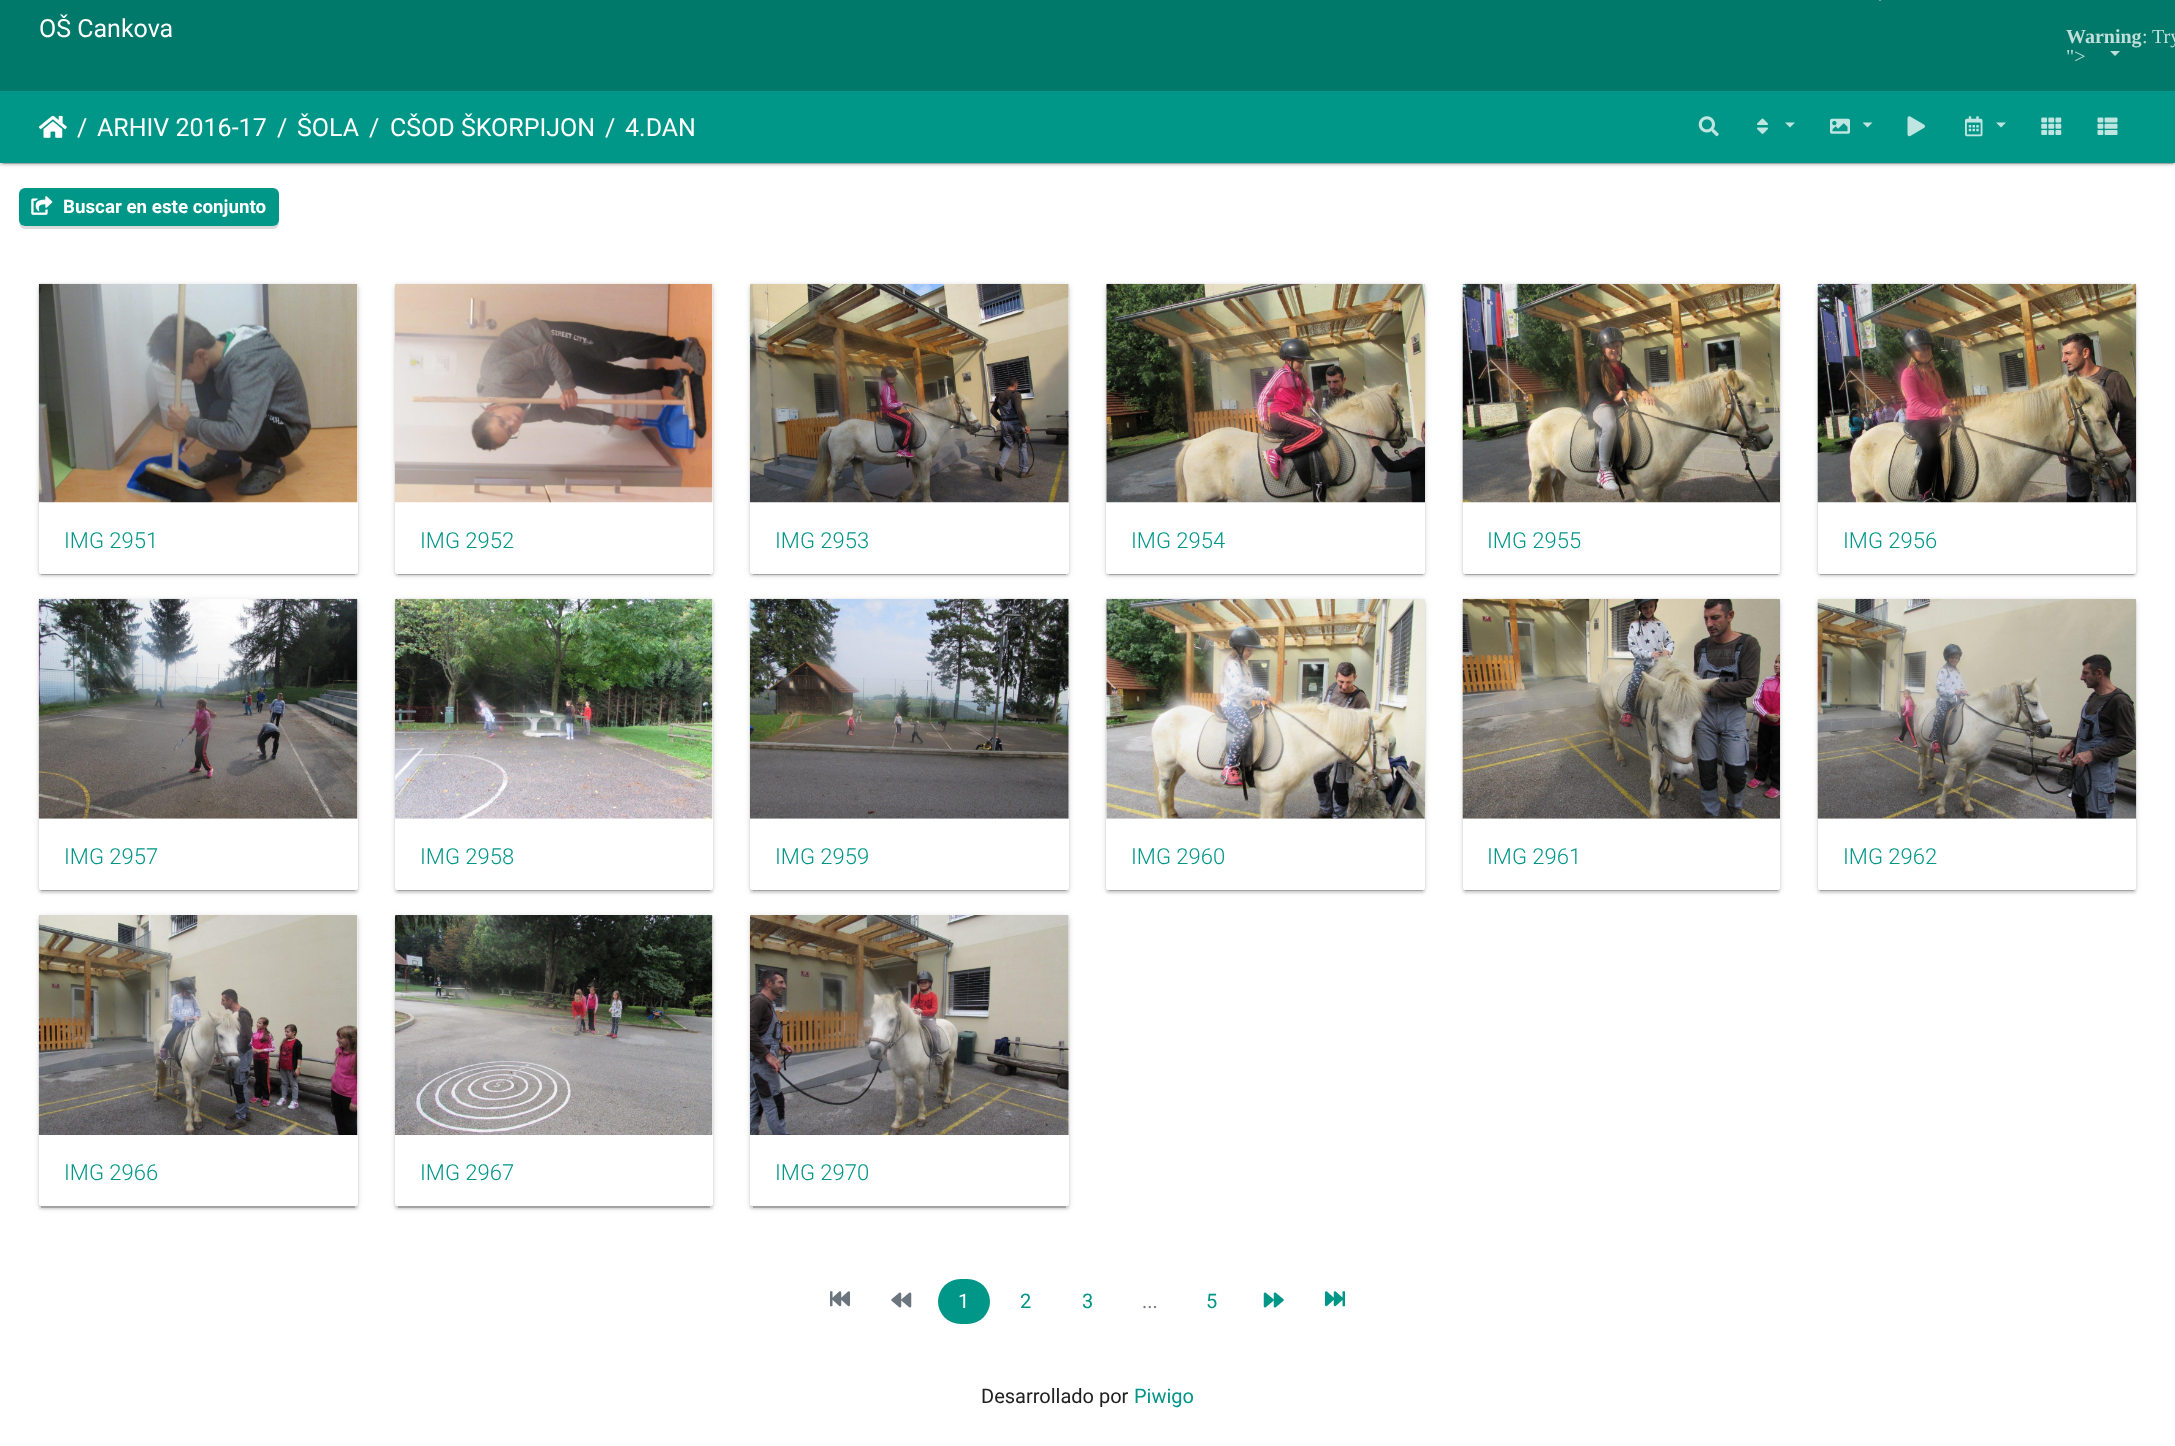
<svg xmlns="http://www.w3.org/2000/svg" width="2175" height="1446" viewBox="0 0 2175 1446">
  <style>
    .t1 { font: 25px Roboto; fill: #fff; }
    .t2 { font: bold 20px Liberation Serif; fill: #bfdeda; }
    .t3 { font: 20px Liberation Serif; fill: #bfdeda; }
    .t4 { font: bold 18.75px Roboto; fill: #fff; }
    .t5 { font: 300 22px Roboto; fill: #009688; }
    .t6 { font: 20px Roboto; fill: #fff; }
    .t7 { font: 20px Roboto; fill: #009688; }
    .t8 { font: 20px Roboto; fill: #6c757d; }
    .t9 { font: 20px Roboto; fill: #212121; }
  </style>
  <rect width="100%" height="100%" fill="#fff"/>
  <rect x="0" y="93" width="2175" height="71" fill="#0000001f" filter="blur(3px)"/>
  <rect x="0" y="94" width="2175" height="71" fill="#00000024" filter="blur(1px)"/>
  <rect x="0" y="0" width="2175" height="91" fill="#00796b"/>
  <text x="39" y="37" class="t1">OŠ Cankova</text>
  <path d="M1875-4H1885L1880 1Z" fill="#bfdeda"/>
  <text x="2066" y="43" class="t2">Warning</text>
  <text x="2142" y="43" class="t3">:</text>
  <text x="2152" y="43" class="t3">Try</text>
  <text x="2066" y="63" class="t3">"&gt;</text>
  <path d="M2110 51H2120L2115 56Z" fill="#bfdeda"/>
  <rect x="3" y="98" width="2170" height="66" fill="#00000033" filter="blur(0.5px)"/>
  <rect x="0" y="91" width="2175" height="72" fill="#009688"/>
  <image x="39" y="115" width="28" height="23" href="images/1.png"/>
  <text x="77" y="136" class="t1">/</text>
  <text x="97" y="136" class="t1">ARHIV 2016-17</text>
  <text x="277" y="136" class="t1">/</text>
  <text x="297" y="136" class="t1">ŠOLA</text>
  <text x="369" y="136" class="t1">/</text>
  <text x="390" y="136" class="t1">CŠOD ŠKORPIJON</text>
  <text x="605" y="136" class="t1">/</text>
  <text x="625" y="136" class="t1">4.DAN</text>
  <image x="1698" y="116" width="21" height="21" href="images/2.png"/>
  <image x="1757" y="118" width="11" height="16" href="images/3.png"/>
  <path d="M1785 122.5H1795L1790 127.5Z" fill="#bfe5e1"/>
  <image x="1830" y="118" width="20" height="16" href="images/4.png"/>
  <path d="M1862.5 122.5H1872.5L1867.5 127.5Z" fill="#bfe5e1"/>
  <image x="1907" y="116" width="18" height="21" href="images/5.png"/>
  <image x="1965" y="116" width="18" height="21" href="images/6.png"/>
  <path d="M1996 122.5H2006L2001 127.5Z" fill="#bfe5e1"/>
  <image x="2041" y="117" width="21" height="18" href="images/7.png"/>
  <image x="2097" y="117" width="21" height="18" href="images/8.png"/>
  <path d="M19 222C19 225 21 229 25 229H273C281 229 279 219 279 214V194V220C279 223 276 226 272 226H25C22 226 20 224 19 222Z" fill="#dbdbdb"/>
  <rect x="19" y="188" width="260" height="38" rx="6" fill="#009688"/>
  <image x="31" y="196" width="22" height="19" href="images/9.png"/>
  <text x="63" y="213" class="t4">Buscar en este conjunto</text>
  <rect x="39" y="285" width="319" height="290" rx="2.5" fill="#0000001f" filter="blur(3px)"/>
  <rect x="41" y="290" width="314" height="285" fill="#00000033" filter="blur(0.5px)"/>
  <rect x="39" y="286" width="319" height="290" rx="2.5" fill="#00000024" filter="blur(1px)"/>
  <rect x="39" y="284" width="319" height="290" rx="2.5" fill="#fff"/>
  <image x="38" y="283" width="320" height="220" href="images/10.png"/>
  <text x="64" y="548" class="t5">IMG 2951</text>
  <rect x="395" y="285" width="318" height="290" rx="2.5" fill="#0000001f" filter="blur(3px)"/>
  <rect x="398" y="290" width="312" height="285" fill="#00000033" filter="blur(0.5px)"/>
  <rect x="395" y="286" width="318" height="290" rx="2.5" fill="#00000024" filter="blur(1px)"/>
  <rect x="395" y="284" width="318" height="290" rx="2.5" fill="#fff"/>
  <image x="395" y="283" width="318" height="220" href="images/11.png"/>
  <text x="420" y="548" class="t5">IMG 2952</text>
  <rect x="750" y="285" width="319" height="290" rx="2.5" fill="#0000001f" filter="blur(3px)"/>
  <rect x="753" y="290" width="313" height="285" fill="#00000033" filter="blur(0.5px)"/>
  <rect x="750" y="286" width="319" height="290" rx="2.5" fill="#00000024" filter="blur(1px)"/>
  <rect x="750" y="284" width="319" height="290" rx="2.5" fill="#fff"/>
  <image x="750" y="283" width="319" height="220" href="images/12.png"/>
  <text x="775" y="548" class="t5">IMG 2953</text>
  <rect x="1106" y="285" width="319" height="290" rx="2.5" fill="#0000001f" filter="blur(3px)"/>
  <rect x="1109" y="290" width="314" height="285" fill="#00000033" filter="blur(0.5px)"/>
  <rect x="1106" y="286" width="319" height="290" rx="2.5" fill="#00000024" filter="blur(1px)"/>
  <rect x="1106" y="284" width="319" height="290" rx="2.5" fill="#fff"/>
  <image x="1106" y="283" width="319" height="220" href="images/13.png"/>
  <text x="1131" y="548" class="t5">IMG 2954</text>
  <rect x="1463" y="285" width="317" height="290" rx="2.5" fill="#0000001f" filter="blur(3px)"/>
  <rect x="1465" y="290" width="313" height="285" fill="#00000033" filter="blur(0.5px)"/>
  <rect x="1463" y="286" width="317" height="290" rx="2.5" fill="#00000024" filter="blur(1px)"/>
  <rect x="1463" y="284" width="317" height="290" rx="2.5" fill="#fff"/>
  <image x="1462" y="283" width="318" height="220" href="images/14.png"/>
  <text x="1487" y="548" class="t5">IMG 2955</text>
  <rect x="1818" y="285" width="318" height="290" rx="2.5" fill="#0000001f" filter="blur(3px)"/>
  <rect x="1820" y="290" width="314" height="285" fill="#00000033" filter="blur(0.5px)"/>
  <rect x="1818" y="286" width="318" height="290" rx="2.5" fill="#00000024" filter="blur(1px)"/>
  <rect x="1818" y="284" width="318" height="290" rx="2.5" fill="#fff"/>
  <image x="1817" y="283" width="320" height="220" href="images/15.png"/>
  <text x="1843" y="548" class="t5">IMG 2956</text>
  <rect x="39" y="600" width="319" height="291" rx="2.5" fill="#0000001f" filter="blur(3px)"/>
  <rect x="41" y="605" width="314" height="286" fill="#00000033" filter="blur(0.5px)"/>
  <rect x="39" y="601" width="319" height="292" rx="2.5" fill="#00000024" filter="blur(1px)"/>
  <rect x="39" y="599" width="319" height="291" rx="2.5" fill="#fff"/>
  <image x="38" y="598" width="320" height="221" href="images/16.png"/>
  <text x="64" y="864" class="t5">IMG 2957</text>
  <rect x="395" y="600" width="318" height="291" rx="2.5" fill="#0000001f" filter="blur(3px)"/>
  <rect x="398" y="605" width="312" height="286" fill="#00000033" filter="blur(0.5px)"/>
  <rect x="395" y="601" width="318" height="292" rx="2.5" fill="#00000024" filter="blur(1px)"/>
  <rect x="395" y="599" width="318" height="291" rx="2.5" fill="#fff"/>
  <image x="395" y="598" width="318" height="221" href="images/17.png"/>
  <text x="420" y="864" class="t5">IMG 2958</text>
  <rect x="750" y="600" width="319" height="291" rx="2.5" fill="#0000001f" filter="blur(3px)"/>
  <rect x="753" y="605" width="313" height="286" fill="#00000033" filter="blur(0.5px)"/>
  <rect x="750" y="601" width="319" height="292" rx="2.5" fill="#00000024" filter="blur(1px)"/>
  <rect x="750" y="599" width="319" height="291" rx="2.5" fill="#fff"/>
  <image x="750" y="598" width="319" height="221" href="images/18.png"/>
  <text x="775" y="864" class="t5">IMG 2959</text>
  <rect x="1106" y="600" width="319" height="291" rx="2.5" fill="#0000001f" filter="blur(3px)"/>
  <rect x="1109" y="605" width="314" height="286" fill="#00000033" filter="blur(0.5px)"/>
  <rect x="1106" y="601" width="319" height="292" rx="2.5" fill="#00000024" filter="blur(1px)"/>
  <rect x="1106" y="599" width="319" height="291" rx="2.5" fill="#fff"/>
  <image x="1106" y="598" width="319" height="221" href="images/19.png"/>
  <text x="1131" y="864" class="t5">IMG 2960</text>
  <rect x="1463" y="600" width="317" height="291" rx="2.5" fill="#0000001f" filter="blur(3px)"/>
  <rect x="1465" y="605" width="313" height="286" fill="#00000033" filter="blur(0.5px)"/>
  <rect x="1463" y="601" width="317" height="292" rx="2.5" fill="#00000024" filter="blur(1px)"/>
  <rect x="1463" y="599" width="317" height="291" rx="2.5" fill="#fff"/>
  <image x="1462" y="598" width="318" height="221" href="images/20.png"/>
  <text x="1487" y="864" class="t5">IMG 2961</text>
  <rect x="1818" y="600" width="318" height="291" rx="2.5" fill="#0000001f" filter="blur(3px)"/>
  <rect x="1820" y="605" width="314" height="286" fill="#00000033" filter="blur(0.5px)"/>
  <rect x="1818" y="601" width="318" height="292" rx="2.5" fill="#00000024" filter="blur(1px)"/>
  <rect x="1818" y="599" width="318" height="291" rx="2.5" fill="#fff"/>
  <image x="1817" y="598" width="320" height="221" href="images/21.png"/>
  <text x="1843" y="864" class="t5">IMG 2962</text>
  <rect x="39" y="916" width="319" height="292" rx="2.5" fill="#0000001f" filter="blur(3px)"/>
  <rect x="41" y="921" width="314" height="287" fill="#00000033" filter="blur(0.5px)"/>
  <rect x="39" y="918" width="319" height="291" rx="2.5" fill="#00000024" filter="blur(1px)"/>
  <rect x="39" y="915" width="319" height="291" rx="2.5" fill="#fff"/>
  <image x="38" y="915" width="320" height="220" href="images/22.png"/>
  <text x="64" y="1180" class="t5">IMG 2966</text>
  <rect x="395" y="916" width="318" height="292" rx="2.5" fill="#0000001f" filter="blur(3px)"/>
  <rect x="398" y="921" width="312" height="287" fill="#00000033" filter="blur(0.5px)"/>
  <rect x="395" y="918" width="318" height="291" rx="2.5" fill="#00000024" filter="blur(1px)"/>
  <rect x="395" y="915" width="318" height="291" rx="2.5" fill="#fff"/>
  <image x="395" y="915" width="318" height="220" href="images/23.png"/>
  <text x="420" y="1180" class="t5">IMG 2967</text>
  <rect x="750" y="916" width="319" height="292" rx="2.5" fill="#0000001f" filter="blur(3px)"/>
  <rect x="753" y="921" width="313" height="287" fill="#00000033" filter="blur(0.5px)"/>
  <rect x="750" y="918" width="319" height="291" rx="2.5" fill="#00000024" filter="blur(1px)"/>
  <rect x="750" y="915" width="319" height="291" rx="2.5" fill="#fff"/>
  <image x="750" y="915" width="319" height="220" href="images/24.png"/>
  <text x="775" y="1180" class="t5">IMG 2970</text>
  <image x="830" y="1291" width="20" height="16" href="images/25.png"/>
  <image x="891" y="1292" width="21" height="16" href="images/26.png"/>
  <rect x="938" y="1279" width="52" height="45" rx="22.5" fill="#009688"/>
  <text x="958" y="1308" class="t6">1</text>
  <text x="1020" y="1308" class="t7">2</text>
  <text x="1082" y="1308" class="t7">3</text>
  <text x="1142" y="1308" class="t8">...</text>
  <text x="1206" y="1308" class="t7">5</text>
  <image x="1263" y="1292" width="21" height="16" href="images/27.png"/>
  <image x="1325" y="1291" width="20" height="16" href="images/28.png"/>
  <text x="981" y="1403" class="t9">Desarrollado por</text>
  <text x="1134" y="1403" class="t7">Piwigo</text>
</svg>
